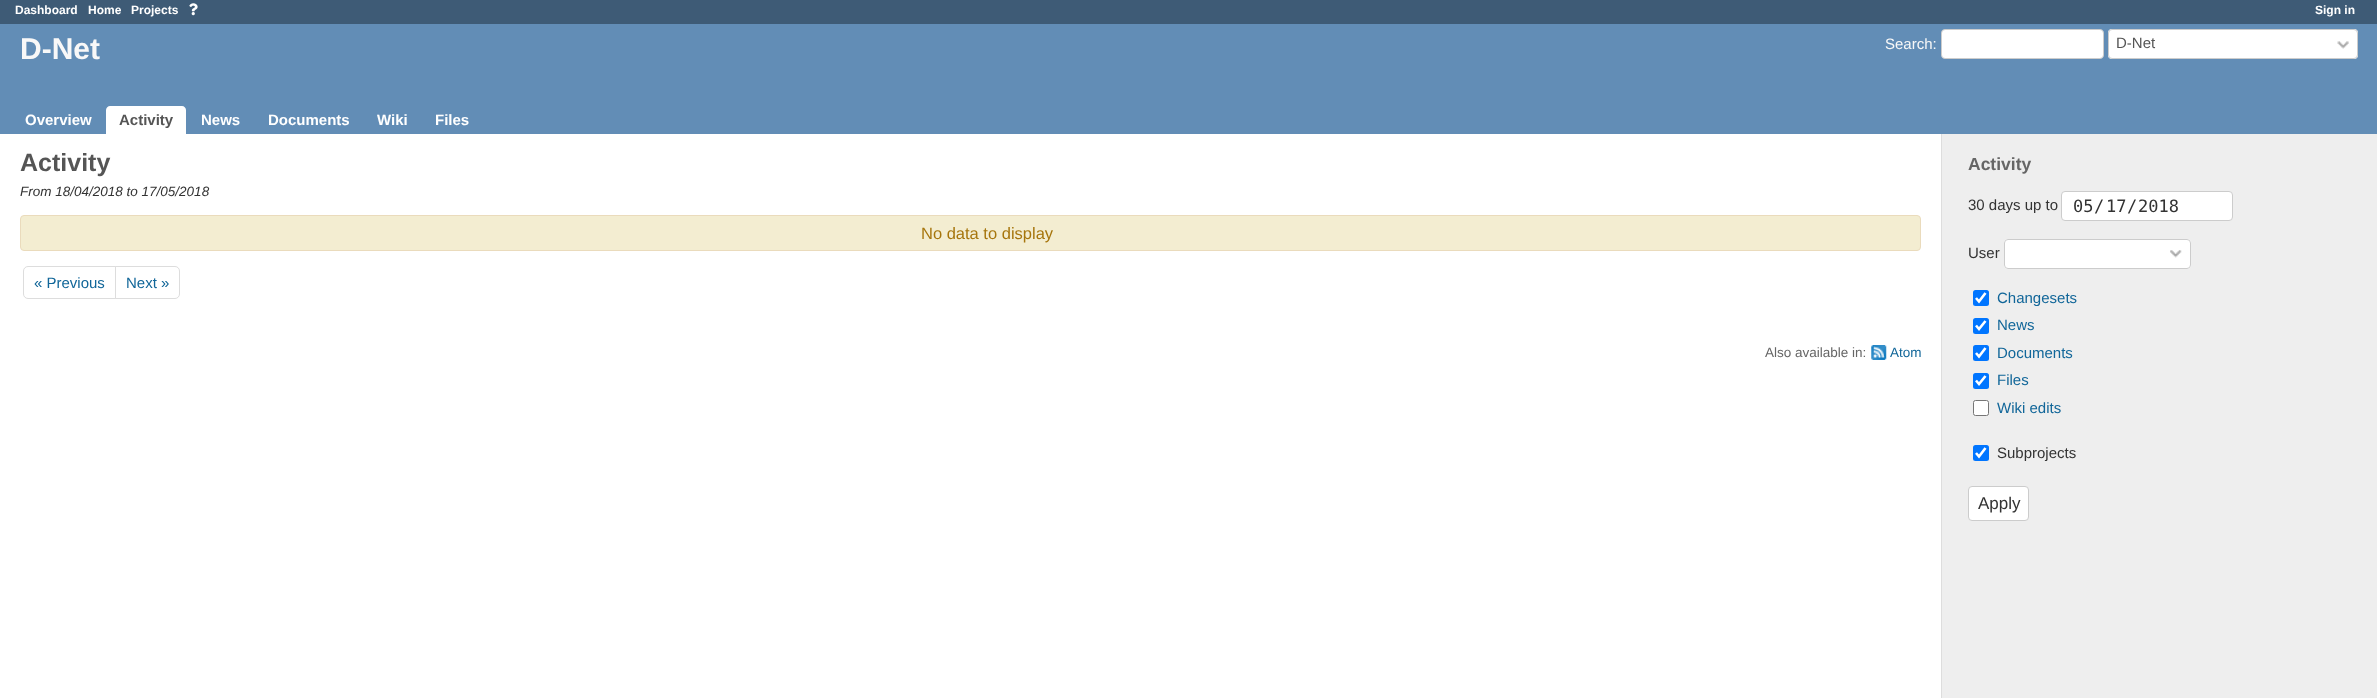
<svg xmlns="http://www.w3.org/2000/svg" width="2377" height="698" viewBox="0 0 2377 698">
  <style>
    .t1 { font: bold 12px Liberation Sans; fill: #fff; }
    .t2 { font: bold 30px Liberation Sans; fill: #f8f8f8; }
    .t3 { font: 15px Liberation Sans; fill: #f8f8f8; }
    .t4 { font: 15px Liberation Sans; fill: #555; }
    .t5 { font: bold 15px Liberation Sans; fill: #fff; }
    .t6 { font: bold 15px Liberation Sans; fill: #555; }
    .t7 { font: bold 25px Liberation Sans; fill: #555; }
    .t8 { font: italic 13.5px Liberation Sans; fill: #333; }
    .t9 { font: 16.5px Liberation Sans; fill: #a6750c; }
    .t10 { font: 15px Liberation Sans; fill: #169; }
    .t11 { font: 13.5px Liberation Sans; fill: #666; }
    .t12 { font: 13.5px Liberation Sans; fill: #169; }
    .t13 { font: bold 17.5px Liberation Sans; fill: #666; }
    .t14 { font: 15px Liberation Sans; fill: #333; }
    .t15 { font: 17px DejaVu Sans Mono; fill: #333; }
    .t16 { font: 17px Liberation Sans; fill: #333; }
  </style>
  <rect width="100%" height="100%" fill="#fff"/>
  <rect x="0" y="0" width="2377" height="24" fill="#3e5b76"/>
  <text x="15" y="14" class="t1">Dashboard</text>
  <text x="88" y="14" class="t1">Home</text>
  <text x="131" y="14" class="t1">Projects</text>
  <image x="189" y="3" width="9" height="13" href="images/1.png"/>
  <text x="2315" y="14" class="t1">Sign in</text>
  <rect x="0" y="24" width="2377" height="110" fill="#628db6"/>
  <text x="20" y="59" class="t2">D-Net</text>
  <text x="1885" y="49" class="t3">Search:</text>
  <rect x="1941.5" y="29.5" width="162" height="29" rx="3.5" fill="#fff" stroke="#ccc"/>
  <rect x="2108" y="29" width="250" height="30" rx="4" fill="#fff"/>
  <image x="2337" y="41" width="12" height="8" href="images/2.png"/>
  <rect x="2108.5" y="29.5" width="249" height="29" rx="3.5" fill="none" stroke="#ccc"/>
  <text x="2116" y="48" class="t4">D-Net</text>
  <text x="25" y="125" class="t5">Overview</text>
  <path d="M110 106H182C184 106 186 108 186 110V134H106V110C106 108 108 106 110 106Z" fill="#fff"/>
  <text x="119" y="125" class="t6">Activity</text>
  <text x="201" y="125" class="t5">News</text>
  <text x="268" y="125" class="t5">Documents</text>
  <text x="377" y="125" class="t5">Wiki</text>
  <text x="435" y="125" class="t5">Files</text>
  <text x="20" y="171" class="t7">Activity</text>
  <text x="20" y="196" class="t8">From 18/04/2018 to 17/05/2018</text>
  <rect x="20.5" y="215.5" width="1900" height="35" rx="3.5" fill="#f3edd1" stroke="#eadbbc"/>
  <text x="921" y="239" class="t9">No data to display</text>
  <path d="M28 266.5H115.5V298.5H28C25.5 298.5 23.5 296.5 23.5 294V271C23.5 268.5 25.5 266.5 28 266.5Z" fill="none" stroke="#ddd"/>
  <text x="34" y="288" class="t10">« Previous</text>
  <path d="M115.5 266.5H175C177.5 266.5 179.5 268.5 179.5 271V294C179.5 296.5 177.5 298.5 175 298.5H115.5Z" fill="none" stroke="#ddd"/>
  <text x="126" y="288" class="t10">Next »</text>
  <text x="1765" y="357" class="t11">Also available in:</text>
  <image x="1871" y="345" width="16" height="15" href="images/3.png"/>
  <text x="1890" y="357" class="t12">Atom</text>
  <rect x="1942" y="134" width="435" height="564" fill="#eee"/>
  <rect x="1941" y="134" width="1" height="564" fill="#ddd"/>
  <text x="1968" y="170" class="t13">Activity</text>
  <text x="1968" y="210" class="t14">30 days up to</text>
  <rect x="2061.5" y="191.5" width="171" height="29" rx="3.5" fill="#fff" stroke="#ccc"/>
  <text x="2073" y="212" class="t15">05</text>
  <text x="2094" y="212" class="t15">/</text>
  <text x="2106" y="212" class="t15">17</text>
  <text x="2127" y="212" class="t15">/</text>
  <text x="2138" y="212" class="t15">2018</text>
  <text x="1968" y="258" class="t14">User</text>
  <rect x="2004" y="239" width="187" height="30" rx="4" fill="#fff"/>
  <image x="2170" y="250" width="12" height="8" href="images/4.png"/>
  <rect x="2004.5" y="239.5" width="186" height="29" rx="3.5" fill="none" stroke="#ccc"/>
  <rect x="1973" y="290" width="16" height="16" rx="2.5" fill="#0075ff"/>
  <path d="M1976 298L1979 301.5L1985.5 293" fill="none" stroke="#fff" stroke-width="2.6"/>
  <text x="1997" y="303" class="t10">Changesets</text>
  <rect x="1973" y="318" width="16" height="16" rx="2.5" fill="#0075ff"/>
  <path d="M1976 325.5L1979 329L1985.5 321" fill="none" stroke="#fff" stroke-width="2.6"/>
  <text x="1997" y="330" class="t10">News</text>
  <rect x="1973" y="345" width="16" height="16" rx="2.5" fill="#0075ff"/>
  <path d="M1976 353L1979 356.5L1985.5 348" fill="none" stroke="#fff" stroke-width="2.6"/>
  <text x="1997" y="358" class="t10">Documents</text>
  <rect x="1973" y="373" width="16" height="16" rx="2.5" fill="#0075ff"/>
  <path d="M1976 380.5L1979 384L1985.5 376" fill="none" stroke="#fff" stroke-width="2.6"/>
  <text x="1997" y="385" class="t10">Files</text>
  <rect x="1973.5" y="400.5" width="15" height="15" rx="2" fill="#fff" stroke="#767676"/>
  <text x="1997" y="413" class="t10">Wiki edits</text>
  <rect x="1973" y="445" width="16" height="16" rx="2.5" fill="#0075ff"/>
  <path d="M1976 453L1979 456.5L1985.5 448" fill="none" stroke="#fff" stroke-width="2.6"/>
  <text x="1997" y="458" class="t14">Subprojects</text>
  <rect x="1968.5" y="486.5" width="60" height="34" rx="3.5" fill="#fff" stroke="#ccc"/>
  <text x="1978" y="509" class="t16">Apply</text>
</svg>
